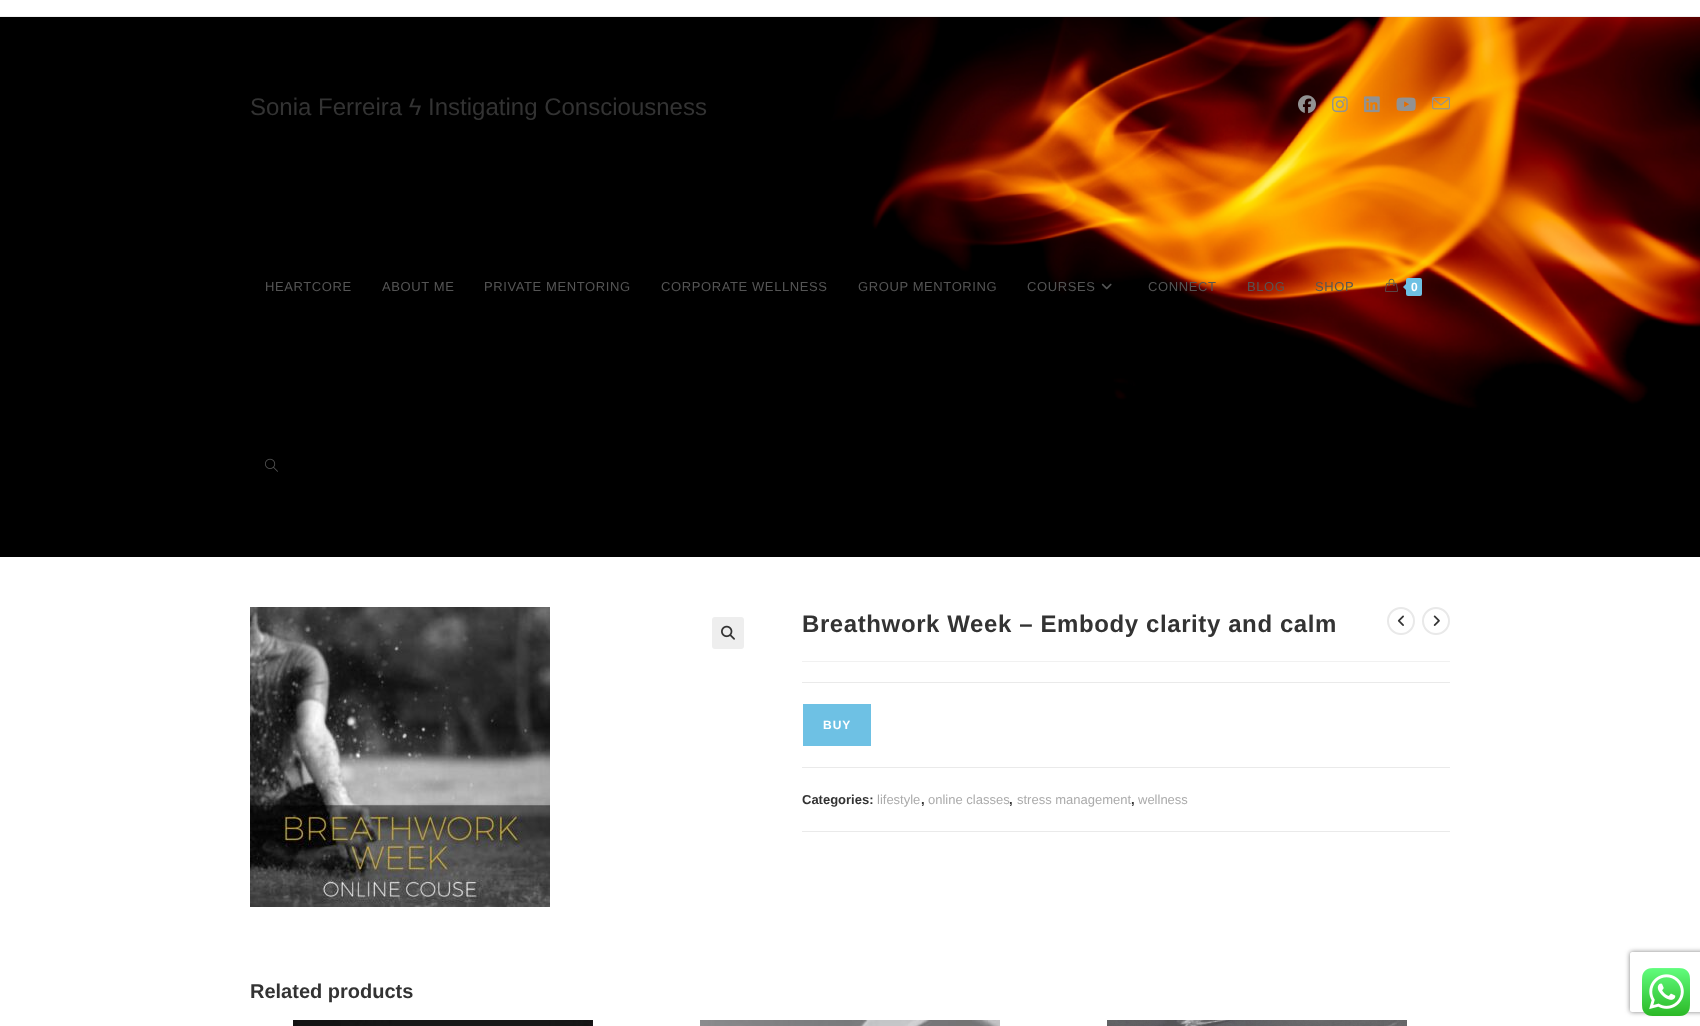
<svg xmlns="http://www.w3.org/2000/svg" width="1700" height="1026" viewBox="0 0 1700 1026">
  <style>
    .t1 { font: 24px Liberation Sans; fill: #333; }
    .t2 { font: 13px Liberation Sans; letter-spacing: 0.6px; fill: #555; }
    .t3 { font: bold 12px Liberation Sans; fill: #fff; }
    .t4 { font: bold 24px Liberation Sans; letter-spacing: 0.6px; fill: #333; }
    .t5 { font: bold 12px Liberation Sans; letter-spacing: 1px; fill: #fff; }
    .t6 { font: bold 13px Liberation Sans; fill: #333; }
    .t7 { font: 13px Liberation Sans; fill: #ababab; }
    .t8 { font: bold 20px Liberation Sans; fill: #333; }
  </style>
  <defs>
    <clipPath id="clip1"><path d="M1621 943H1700V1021H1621ZM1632 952H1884C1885 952 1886 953 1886 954V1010C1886 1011 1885 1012 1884 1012H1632C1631 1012 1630 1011 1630 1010V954C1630 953 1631 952 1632 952Z" clip-rule="evenodd"/></clipPath>
  </defs>
  <rect width="100%" height="100%" fill="#fff"/>
  <rect x="0" y="16" width="1700" height="1" fill="#f1f1f1"/>
  <image x="0" y="17" width="1700" height="540" href="images/1.png"/>
  <text x="250" y="115" class="t1">Sonia Ferreira ϟ Instigating Consciousness</text>
  <image x="1298" y="95" width="18" height="19" href="images/2.png"/>
  <image x="1332" y="96" width="16" height="17" href="images/3.png"/>
  <image x="1364" y="96" width="16" height="17" href="images/4.png"/>
  <image x="1396" y="97" width="20" height="14" href="images/5.png"/>
  <image x="1432" y="96" width="18" height="14" href="images/6.png"/>
  <text x="265" y="291" class="t2">HEARTCORE</text>
  <text x="382" y="291" class="t2">ABOUT ME</text>
  <text x="484" y="291" class="t2">PRIVATE MENTORING</text>
  <text x="661" y="291" class="t2">CORPORATE WELLNESS</text>
  <text x="858" y="291" class="t2">GROUP MENTORING</text>
  <text x="1027" y="291" class="t2">COURSES</text>
  <image x="1101" y="283" width="11" height="7" href="images/7.png"/>
  <text x="1148" y="291" class="t2">CONNECT</text>
  <text x="1247" y="291" class="t2">BLOG</text>
  <text x="1315" y="291" class="t2">SHOP</text>
  <image x="1385" y="278" width="13" height="14" href="images/8.png"/>
  <rect x="1406" y="278" width="16" height="18" rx="2" fill="#6ec1e4"/>
  <path d="M1408 282V292L1403 287Z" fill="#6ec1e4"/>
  <text x="1411" y="291" class="t3">0</text>
  <image x="265" y="458" width="13" height="14" href="images/9.png"/>
  <image x="250" y="607" width="300" height="300" href="images/10.png"/>
  <rect x="712" y="617" width="32" height="32" rx="3" fill="#eee"/>
  <image x="721" y="625" width="14" height="15" href="images/11.png"/>
  <rect x="802" y="661" width="648" height="1" fill="#f1f1f1"/>
  <text x="802" y="632" class="t4">Breathwork Week – Embody clarity and calm</text>
  <rect x="802" y="682" width="648" height="1" fill="#eaeaea"/>
  <rect x="802" y="767" width="648" height="1" fill="#eaeaea"/>
  <rect x="803" y="704" width="68" height="42" fill="#6ec1e4"/>
  <text x="823" y="729" class="t5">BUY</text>
  <rect x="802" y="831" width="648" height="1" fill="#eaeaea"/>
  <text x="802" y="804" class="t6">Categories:</text>
  <text x="877" y="804" class="t7">lifestyle</text>
  <text x="921" y="804" class="t6">,</text>
  <text x="928" y="804" class="t7">online classes</text>
  <text x="1009" y="804" class="t6">,</text>
  <text x="1017" y="804" class="t7">stress management</text>
  <text x="1131" y="804" class="t6">,</text>
  <text x="1138" y="804" class="t7">wellness</text>
  <circle cx="1401" cy="621" r="13" fill="none" stroke="#e9e9e9" stroke-width="2"/>
  <image x="1397" y="615" width="7" height="11" href="images/12.png"/>
  <circle cx="1436" cy="621" r="13" fill="none" stroke="#e9e9e9" stroke-width="2"/>
  <image x="1433" y="615" width="7" height="11" href="images/13.png"/>
  <text x="250" y="998" class="t8">Related products</text>
  <image x="293" y="1020" width="300" height="6" href="images/14.png"/>
  <image x="700" y="1020" width="300" height="6" href="images/15.png"/>
  <image x="1107" y="1020" width="300" height="6" href="images/16.png"/>
  <g clip-path="url(#clip1)">
    <rect x="1630" y="952" width="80" height="60" rx="2" fill="#808080" filter="blur(2.5px)"/>
  </g>
  <image x="1642" y="968" width="48" height="48" href="images/17.png"/>
</svg>
